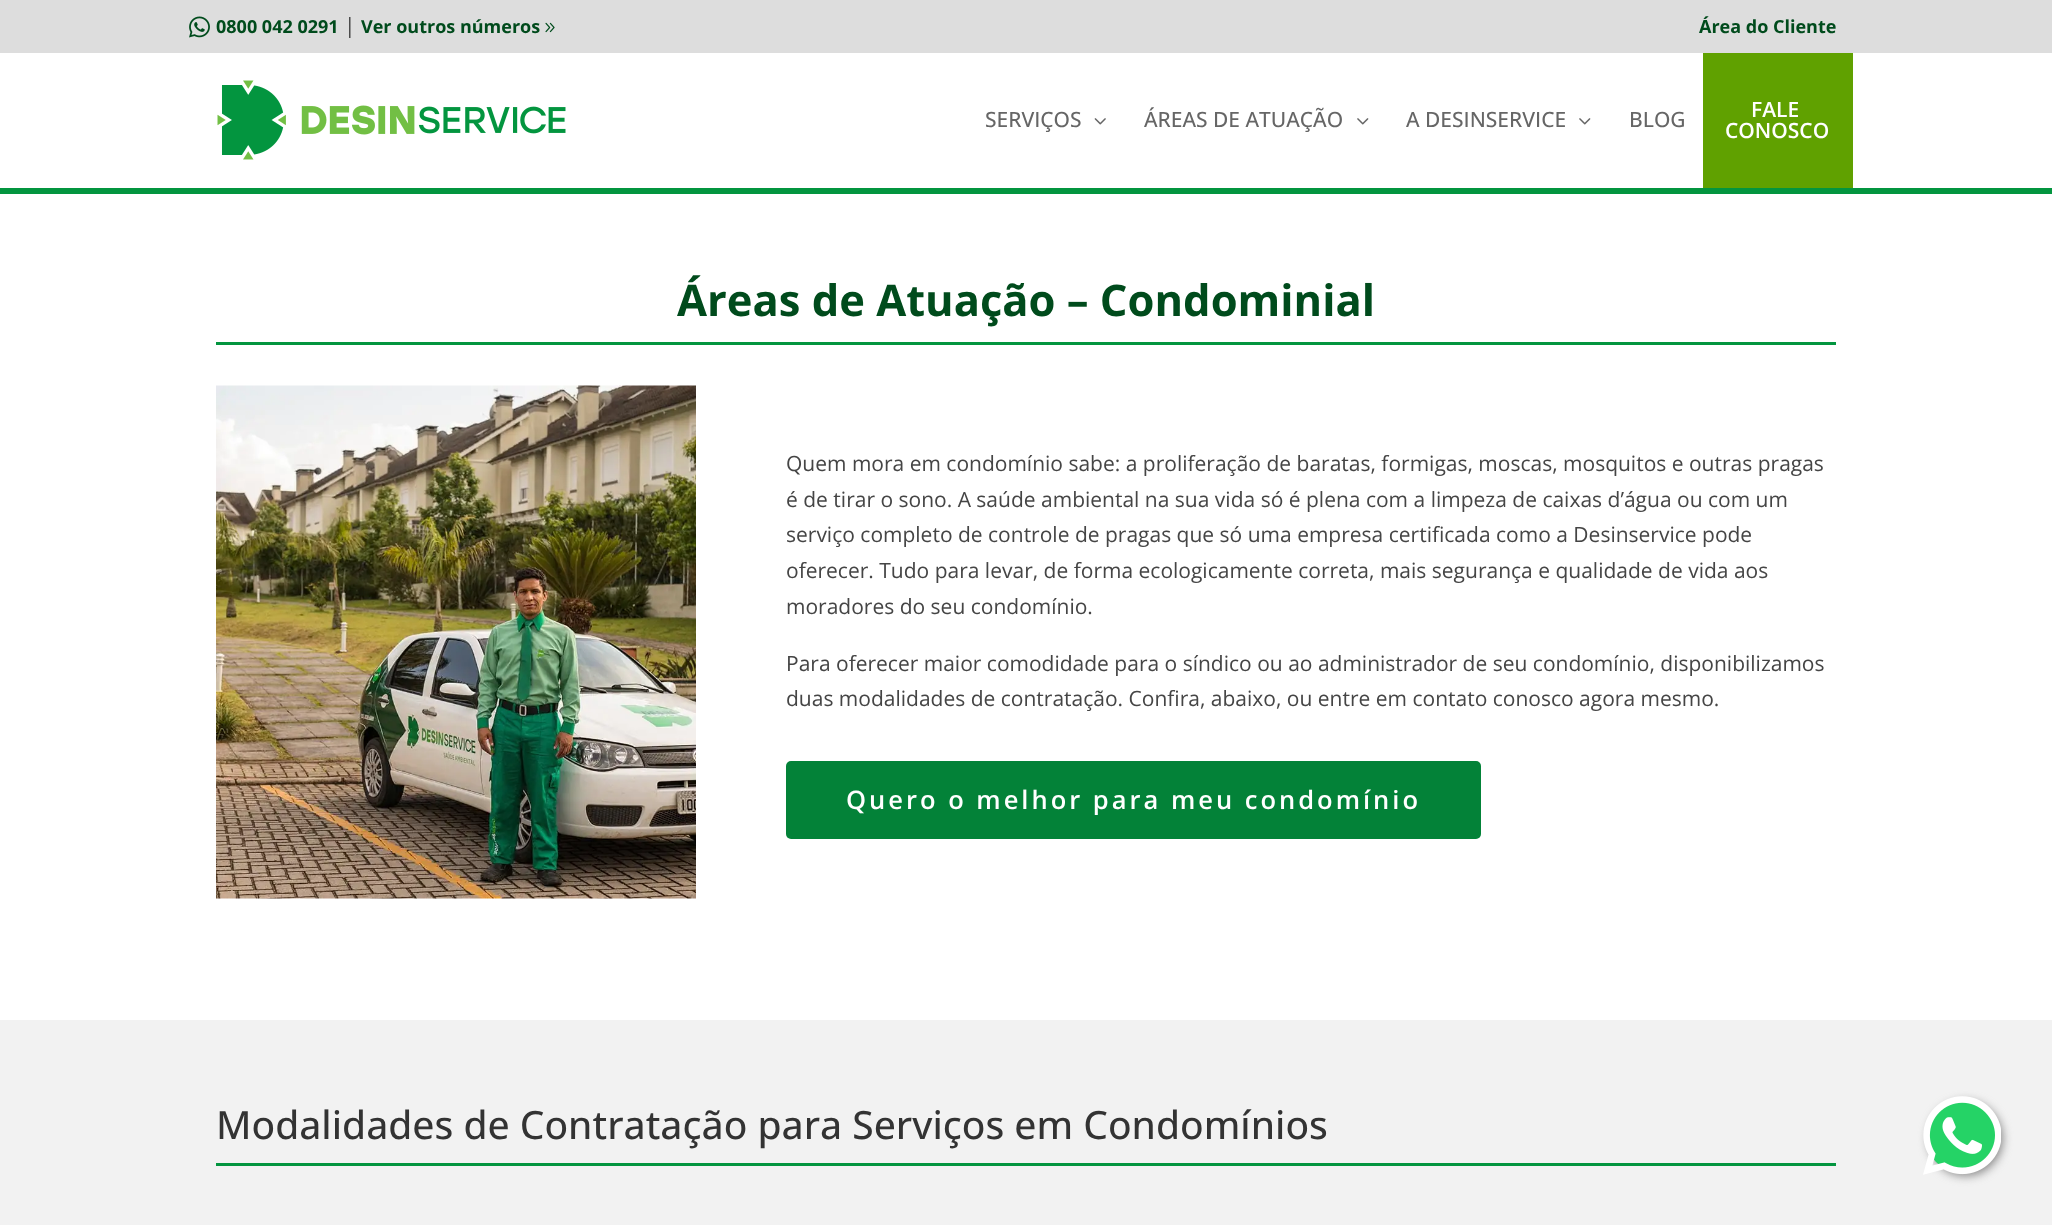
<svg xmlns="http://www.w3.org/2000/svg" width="2052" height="1225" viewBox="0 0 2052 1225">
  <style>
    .t1 { font: bold 18px Open Sans; fill: #004b1c; }
    .t2 { font: 21px Open Sans; fill: #454545; }
    .t3 { font: 500 21px Open Sans; fill: #666; }
    .t4 { font: 600 21px Open Sans; fill: #fff; }
    .t5 { font: bold 43.5px Open Sans; fill: #004b1c; }
    .t6 { font: 600 25.5px Open Sans; letter-spacing: 3px; fill: #fff; }
    .t7 { font: 500 39px Open Sans; fill: #333; }
  </style>
  <rect width="100%" height="100%" fill="#fff"/>
  <rect x="0" y="0" width="2052" height="53" fill="#ddd"/>
  <image x="189" y="16" width="21" height="22" href="images/1.png"/>
  <text x="216" y="33" class="t1">0800 042 0291</text>
  <text x="344" y="33" class="t2">|</text>
  <text x="361" y="33" class="t1">Ver outros números</text>
  <image x="545" y="22" width="10" height="11" href="images/2.png"/>
  <text x="1699" y="33" class="t1">Área do Cliente</text>
  <image x="217" y="80" width="349" height="80" href="images/3.png"/>
  <text x="985" y="127" class="t3">SERVIÇOS</text>
  <image x="1094" y="118" width="12" height="7" href="images/4.png"/>
  <text x="1144" y="127" class="t3">ÁREAS DE ATUAÇÃO</text>
  <image x="1357" y="118" width="12" height="7" href="images/5.png"/>
  <text x="1406" y="127" class="t3">A DESINSERVICE</text>
  <image x="1579" y="118" width="12" height="7" href="images/5.png"/>
  <text x="1629" y="127" class="t3">BLOG</text>
  <rect x="1703" y="53" width="150" height="135" fill="#60a100"/>
  <text x="1751" y="117" class="t4">FALE</text>
  <text x="1725" y="138" class="t4">CONOSCO</text>
  <rect x="0" y="188" width="2052" height="6" fill="#03953f"/>
  <rect x="216" y="342" width="1620" height="3" fill="#03953f"/>
  <text x="677" y="316" class="t5">Áreas de Atuação – Condominial</text>
  <image x="216" y="385" width="480" height="514" href="images/6.png"/>
  <text x="786" y="471" class="t2">Quem mora em condomínio sabe: a proliferação de baratas, formigas, moscas, mosquitos e outras pragas</text>
  <text x="786" y="507" class="t2">é de tirar o sono. A saúde ambiental na sua vida só é plena com a limpeza de caixas d’água ou com um</text>
  <text x="786" y="542" class="t2">serviço completo de controle de pragas que só uma empresa certificada como a Desinservice pode</text>
  <text x="786" y="578" class="t2">oferecer. Tudo para levar, de forma ecologicamente correta, mais segurança e qualidade de vida aos</text>
  <text x="786" y="614" class="t2">moradores do seu condomínio.</text>
  <text x="786" y="671" class="t2">Para oferecer maior comodidade para o síndico ou ao administrador de seu condomínio, disponibilizamos</text>
  <text x="786" y="706" class="t2">duas modalidades de contratação. Confira, abaixo, ou entre em contato conosco agora mesmo.</text>
  <rect x="786" y="761" width="695" height="78" rx="5" fill="#038238"/>
  <text x="846" y="809" class="t6">Quero o melhor para meu condomínio</text>
  <rect x="0" y="1020" width="2052" height="205" fill="#f2f2f2"/>
  <rect x="216" y="1163" width="1620" height="3" fill="#03953f"/>
  <text x="216" y="1139" class="t7">Modalidades de Contratação para Serviços em Condomínios</text>
  <rect x="1928" y="1101" width="75" height="75" rx="37.5" fill="#888" filter="blur(5px)"/>
  <circle cx="1962.5" cy="1135.5" r="37.5" fill="#25d366"/>
  <image x="1923" y="1096" width="78" height="79" href="images/7.png"/>
</svg>
